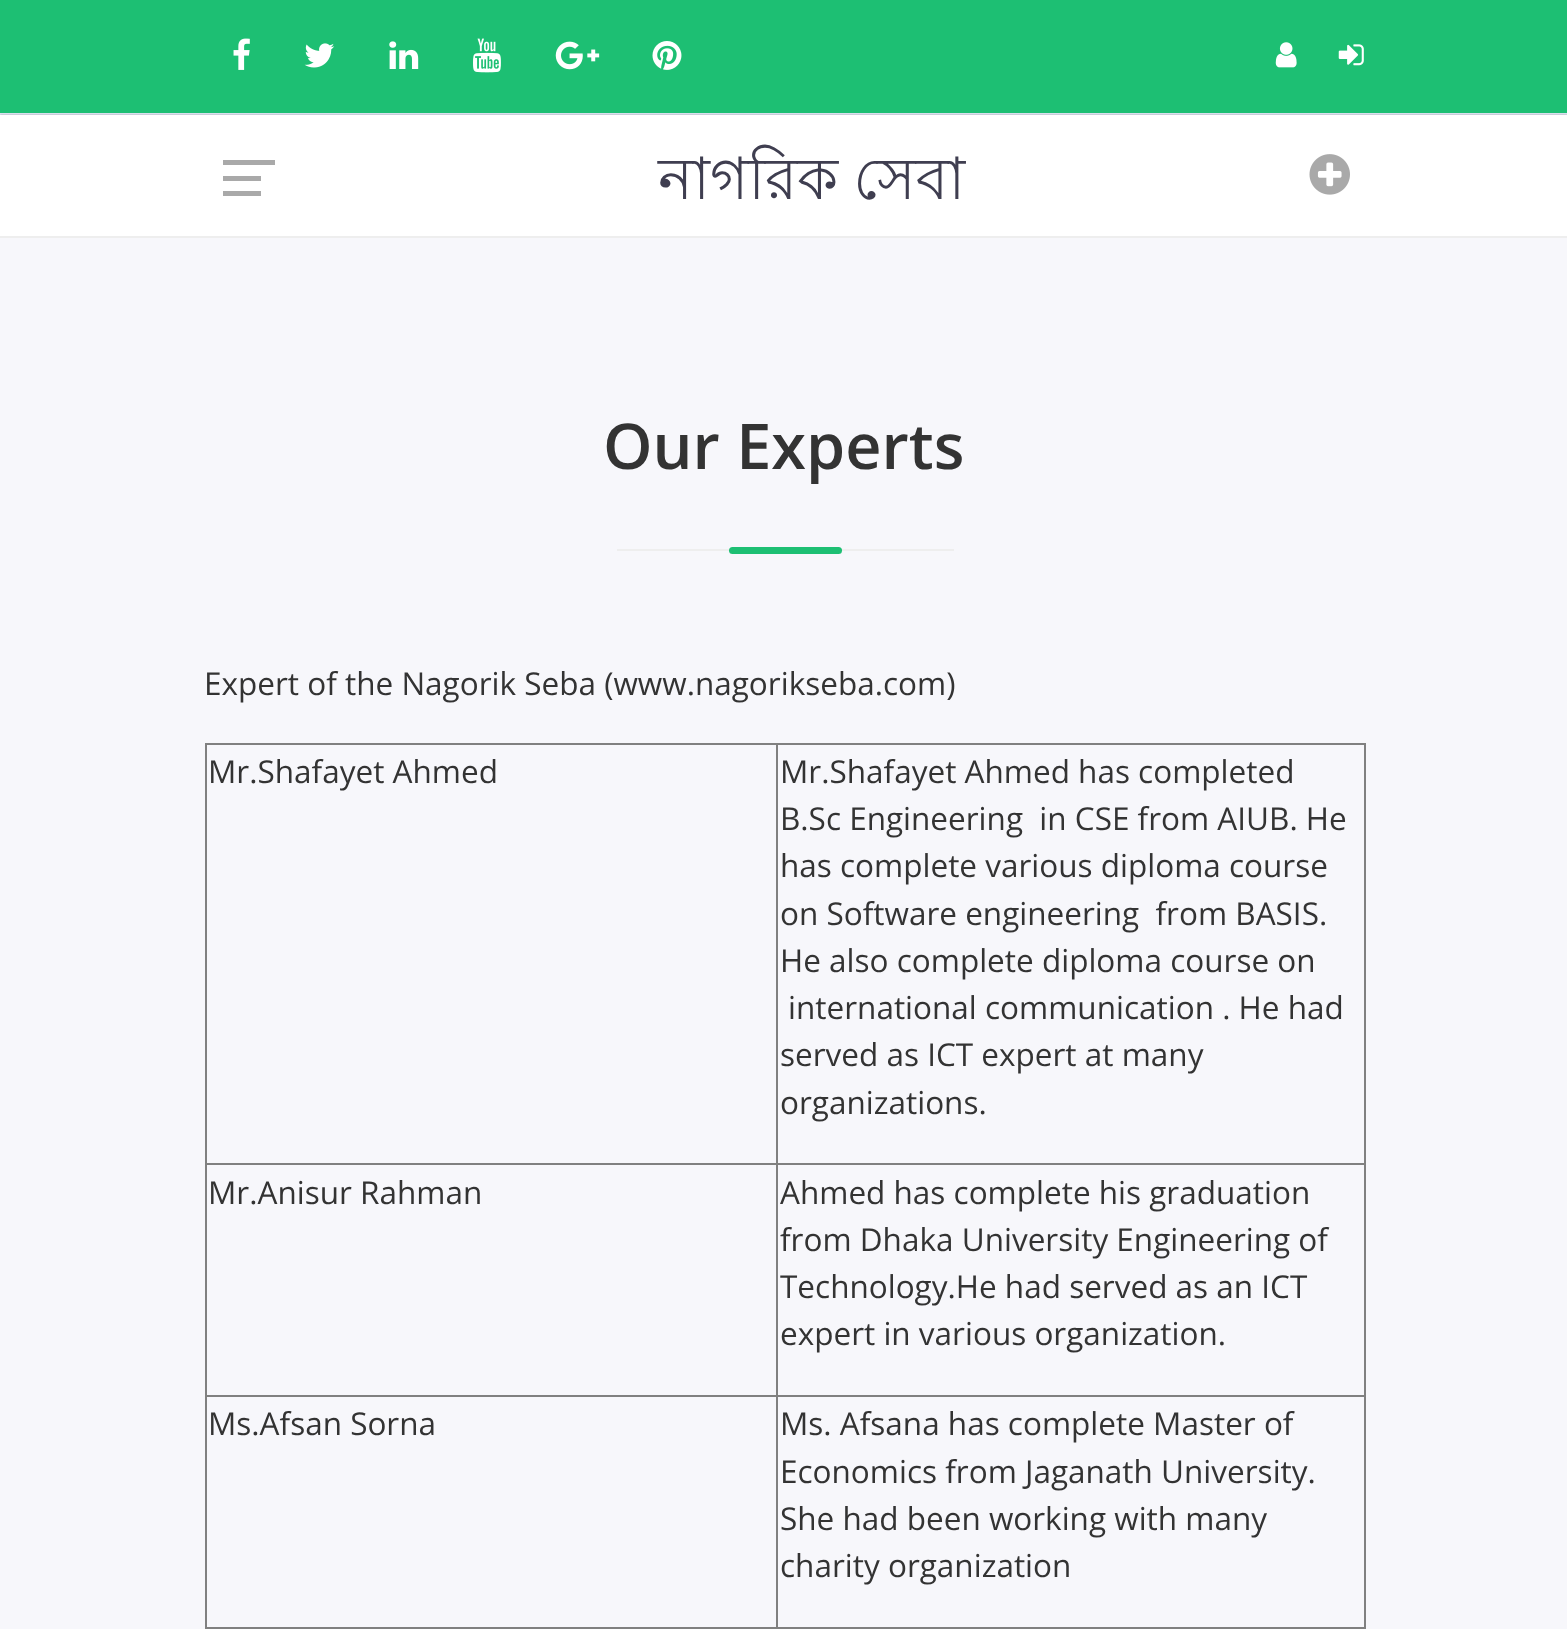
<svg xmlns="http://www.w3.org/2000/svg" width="1567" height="1629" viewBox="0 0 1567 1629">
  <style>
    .t1 { font: 58.5px Lohit Bengali; fill: #3f3e50; }
    .t2 { font: 600 63px Open Sans; fill: #333; }
    .t3 { font: 31.5px Open Sans; fill: #333; }
  </style>
  <rect width="100%" height="100%" fill="#f7f7fb"/>
  <rect x="0" y="0" width="1567" height="113" fill="#1dbf73"/>
  <rect x="0" y="113" width="1567" height="2" fill="#e0e5f3"/>
  <image x="233" y="38" width="17" height="32" href="images/1.png"/>
  <image x="304" y="43" width="31" height="25" href="images/2.png"/>
  <image x="389" y="41" width="30" height="28" href="images/3.png"/>
  <image x="473" y="38" width="28" height="35" href="images/4.png"/>
  <image x="555" y="41" width="45" height="29" href="images/5.png"/>
  <image x="652" y="41" width="30" height="29" href="images/6.png"/>
  <image x="1275" y="42" width="22" height="26" href="images/7.png"/>
  <image x="1338" y="44" width="26" height="22" href="images/8.png"/>
  <rect x="0" y="115" width="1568" height="121" fill="#0000004d" filter="blur(1px)"/>
  <rect x="0" y="115" width="1567" height="121" fill="#fff"/>
  <rect x="223" y="176" width="38" height="5" fill="#a9a9a9"/>
  <rect x="223" y="160" width="52" height="5" fill="#a9a9a9"/>
  <rect x="223" y="191" width="38" height="5" fill="#a9a9a9"/>
  <text x="658" y="199" word-spacing="-1" class="t1">নাগরিক সেবা</text>
  <image x="1309" y="154" width="41" height="41" href="images/9.png"/>
  <rect x="0" y="236" width="1567" height="2" fill="#eee"/>
  <text x="603" y="469" class="t2">Our Experts</text>
  <rect x="617" y="549" width="337" height="2" fill="#eee"/>
  <rect x="729" y="547" width="113" height="7" rx="3.5" fill="#1dbf73"/>
  <text x="204" y="695" class="t3">Expert of the Nagorik Seba (www.nagorikseba.com)</text>
  <rect x="205" y="743" width="1161" height="2" fill="#808080"/>
  <rect x="1364" y="743" width="2" height="886" fill="#808080"/>
  <rect x="205" y="743" width="2" height="886" fill="#808080"/>
  <text x="208" y="783" class="t3">Mr.Shafayet Ahmed</text>
  <rect x="776" y="1163" width="590" height="2" fill="#808080"/>
  <rect x="776" y="1395" width="590" height="2" fill="#808080"/>
  <rect x="205" y="1627" width="1161" height="2" fill="#808080"/>
  <rect x="776" y="1395" width="2" height="234" fill="#808080"/>
  <rect x="205" y="1395" width="574" height="2" fill="#808080"/>
  <rect x="776" y="1163" width="2" height="234" fill="#808080"/>
  <rect x="205" y="1163" width="574" height="2" fill="#808080"/>
  <rect x="776" y="743" width="2" height="423" fill="#808080"/>
  <text x="780" y="783" class="t3">Mr.Shafayet Ahmed has completed</text>
  <text x="780" y="830" class="t3" xml:space="preserve">B.Sc Engineering  in CSE from AIUB. He</text>
  <text x="780" y="877" class="t3">has complete various diploma course</text>
  <text x="780" y="925" class="t3" xml:space="preserve">on Software engineering  from BASIS.</text>
  <text x="780" y="972" class="t3">He also complete diploma course on</text>
  <text x="788" y="1019" class="t3">international communication . He had</text>
  <text x="780" y="1066" class="t3">served as ICT expert at many</text>
  <text x="780" y="1114" class="t3">organizations.</text>
  <text x="208" y="1204" class="t3">Mr.Anisur Rahman</text>
  <text x="780" y="1204" class="t3">Ahmed has complete his graduation</text>
  <text x="780" y="1251" class="t3">from Dhaka University Engineering of</text>
  <text x="780" y="1298" class="t3">Technology.He had served as an ICT</text>
  <text x="780" y="1345" class="t3">expert in various organization.</text>
  <text x="208" y="1435" class="t3">Ms.Afsan Sorna</text>
  <text x="780" y="1435" class="t3">Ms. Afsana has complete Master of</text>
  <text x="780" y="1483" class="t3">Economics from Jaganath University.</text>
  <text x="780" y="1530" class="t3">‍She had been working with many</text>
  <text x="780" y="1577" class="t3">charity organization</text>
</svg>
